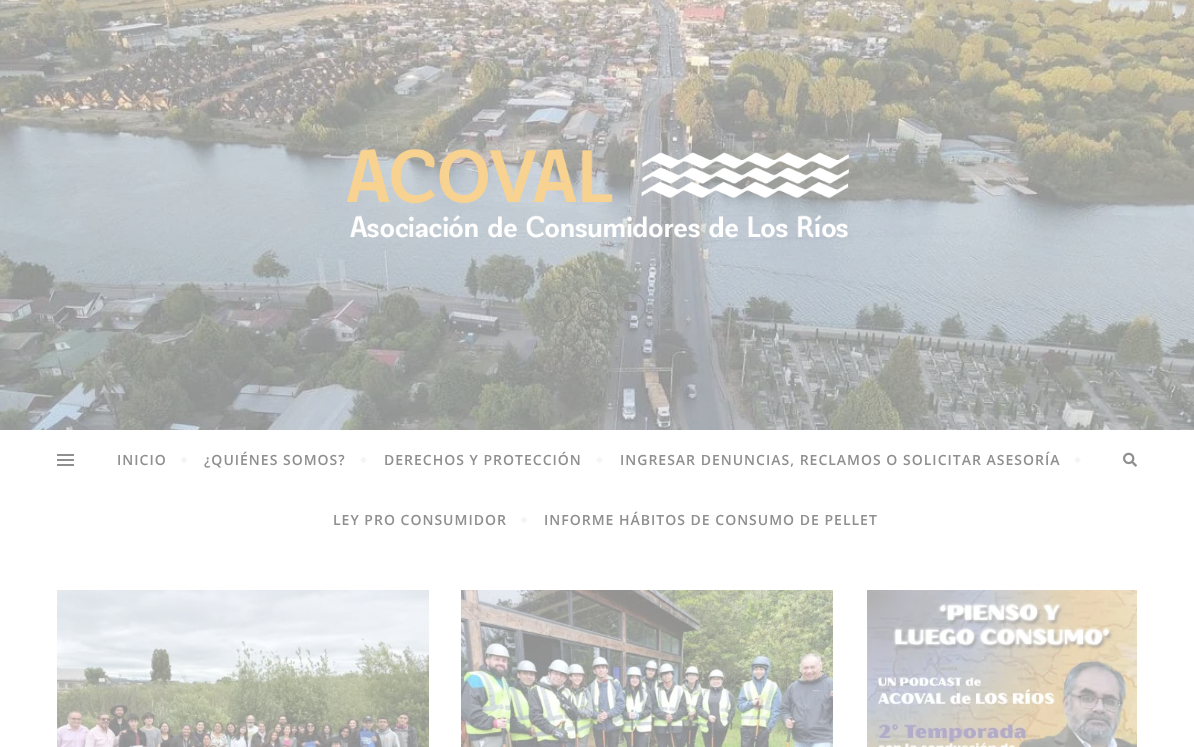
<svg xmlns="http://www.w3.org/2000/svg" width="1194" height="747" viewBox="0 0 1194 747">
  <style>
    .t1 { font: 600 14px Open Sans; letter-spacing: 1px; fill: #8f8f8f; }
  </style>
  <rect width="100%" height="100%" fill="#fff"/>
  <image x="0" y="0" width="1194" height="430" href="images/1.png"/>
  <image x="346" y="148" width="503" height="90" href="images/2.png"/>
  <circle cx="557" cy="307" r="14.5" fill="none" stroke="#969696"/>
  <image x="553" y="300" width="7" height="13" href="images/3.png"/>
  <circle cx="594" cy="307" r="14.5" fill="none" stroke="#969696"/>
  <image x="588" y="301" width="11" height="11" href="images/4.png"/>
  <circle cx="631" cy="307" r="14.5" fill="none" stroke="#969696"/>
  <image x="624" y="302" width="14" height="9" href="images/5.png"/>
  <rect x="57" y="454" width="17" height="2" fill="#8f8f8f"/>
  <rect x="57" y="459" width="17" height="2" fill="#8f8f8f"/>
  <rect x="57" y="464" width="17" height="2" fill="#8f8f8f"/>
  <text x="117" y="465" class="t1">INICIO</text>
  <path d="M180.5 460L184 456.5L187.5 460L184 463.5Z" fill="#f5f5f5"/>
  <text x="204" y="465" class="t1">¿QUIÉNES SOMOS?</text>
  <path d="M360 460L363.5 456.5L367 460L363.5 463.5Z" fill="#f5f5f5"/>
  <text x="384" y="465" class="t1">DERECHOS Y PROTECCIÓN</text>
  <path d="M596 460L599.5 456.5L603 460L599.5 463.5Z" fill="#f5f5f5"/>
  <text x="620" y="465" class="t1">INGRESAR DENUNCIAS, RECLAMOS O SOLICITAR ASESORÍA</text>
  <path d="M1074 460L1077.5 456.5L1081 460L1077.5 463.5Z" fill="#f5f5f5"/>
  <text x="333" y="525" class="t1">LEY PRO CONSUMIDOR</text>
  <path d="M520.5 520L524 516.5L527.5 520L524 523.5Z" fill="#f5f5f5"/>
  <text x="544" y="525" class="t1">INFORME HÁBITOS DE CONSUMO DE PELLET</text>
  <image x="1123" y="452" width="14" height="15" href="images/6.png"/>
  <image x="57" y="590" width="372" height="157" href="images/7.png"/>
  <image x="461" y="590" width="372" height="157" href="images/8.png"/>
  <image x="867" y="590" width="270" height="157" href="images/9.png"/>
</svg>
